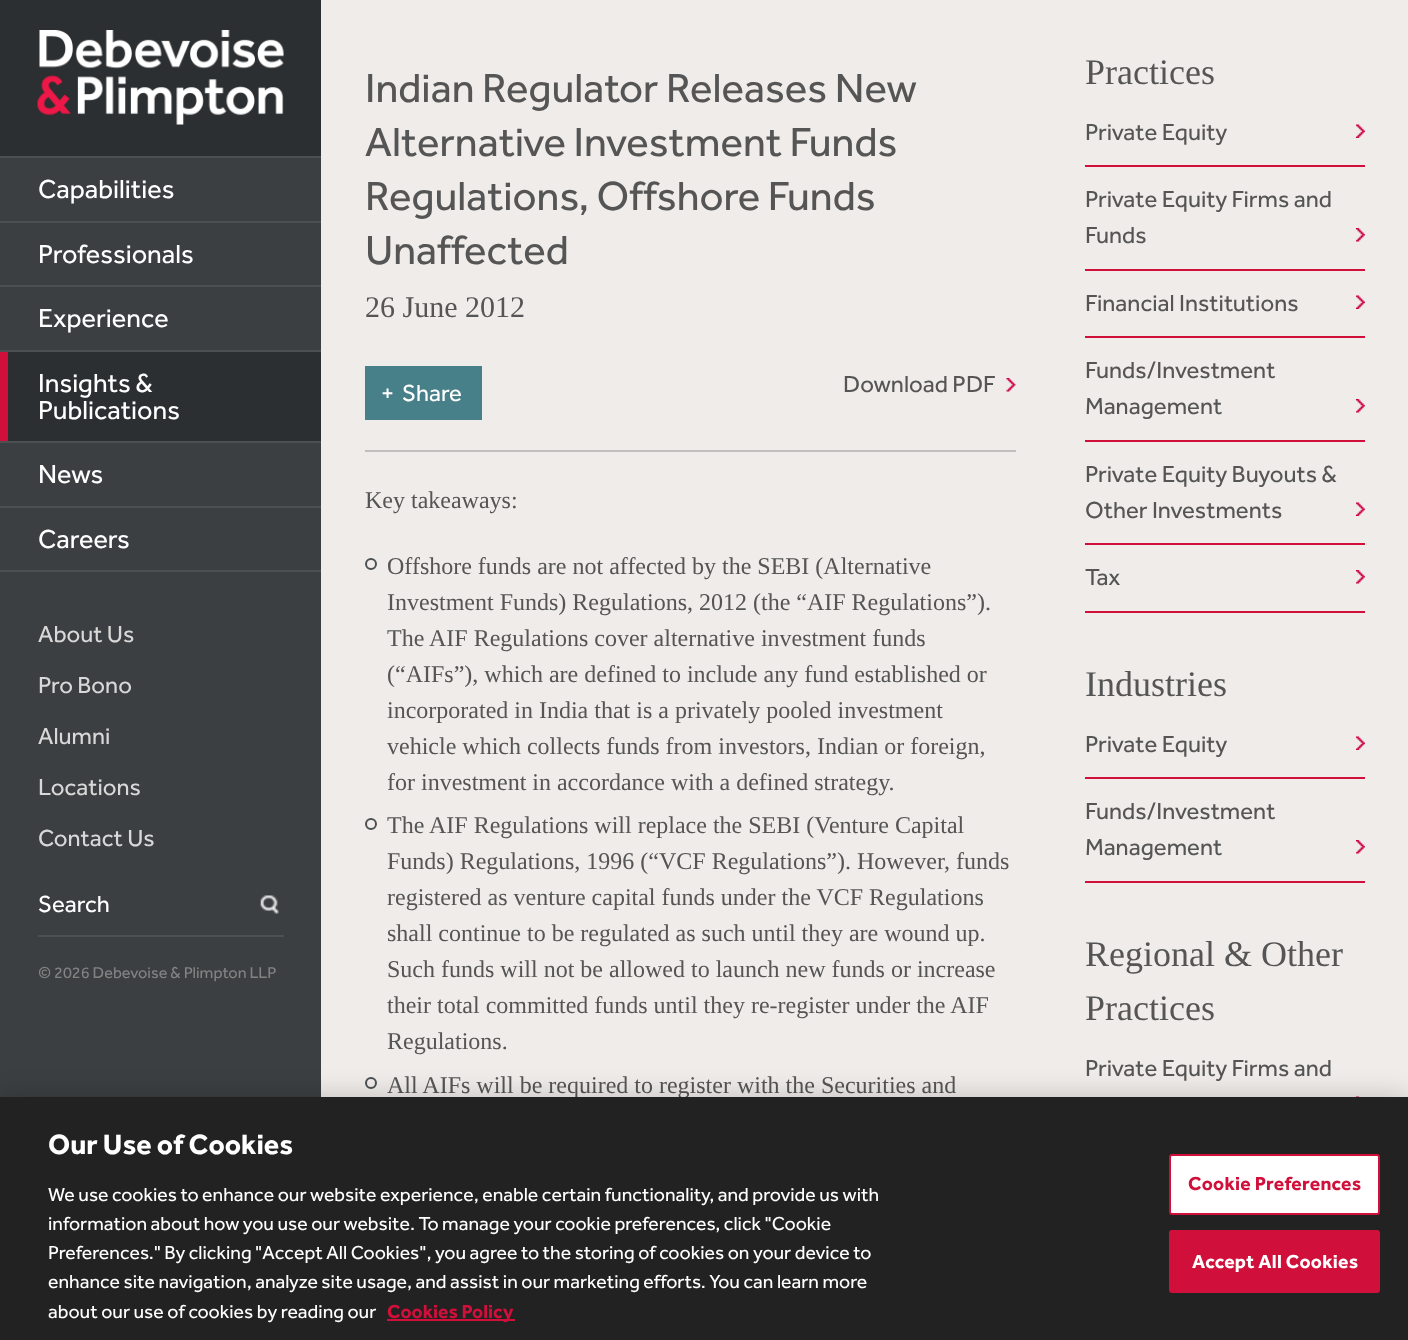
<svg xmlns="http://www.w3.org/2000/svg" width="1408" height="1340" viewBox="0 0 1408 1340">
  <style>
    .t1 { font: 42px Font; fill: #555; }
    .t2 { font: 30px Liberation Serif; fill: #555; }
    .t3 { font: 24px Font; fill: #fff; }
    .t4 { font: 24px Font; fill: #555; }
    .t5 { font: 24px Liberation Serif; fill: #555; }
    .t6 { font: 36px Liberation Serif; fill: #555; }
    .t7 { font: 27px Font; fill: #fff; }
    .t8 { font: 24px Font; fill: #d8d8d8; }
    .t9 { font: 16.3px Font; fill: #838383; }
    .t10 { font: bold 28.75px Font; fill: #fff; }
    .t11 { font: 19.5px Font; fill: #fff; }
    .t12 { font: bold 19.5px Font; fill: #d0103a; }
    .t13 { font: bold 19.5px Font; letter-spacing: 0.25px; fill: #d0103a; }
    .t14 { font: bold 19.5px Font; letter-spacing: 0.25px; fill: #fff; }
  </style>
  <rect width="100%" height="100%" fill="#efece9"/>
  <rect x="0" y="0" width="321" height="156" fill="#2c2f31"/>
  <image x="37" y="30" width="247" height="95" href="images/1.png"/>
  <text x="365" y="102" class="t1">Indian Regulator Releases New</text>
  <text x="365" y="156" class="t1">Alternative Investment Funds</text>
  <text x="365" y="210" class="t1">Regulations, Offshore Funds</text>
  <text x="365" y="264" class="t1">Unaffected</text>
  <text x="365" y="317" class="t2">26 June 2012</text>
  <rect x="365" y="366" width="117" height="54" fill="#488089"/>
  <text x="381" y="401" class="t3">+</text>
  <text x="402" y="401" class="t3">Share</text>
  <text x="843" y="392" class="t4">Download PDF</text>
  <image x="1006" y="378" width="10" height="14" href="images/2.png"/>
  <rect x="365" y="450" width="651" height="2" fill="#bfbfbf"/>
  <text x="365" y="508" class="t5">Key takeaways:</text>
  <circle cx="371" cy="564" r="5" fill="none" stroke="#4c5052" stroke-width="2"/>
  <text x="387" y="574" class="t5">Offshore funds are not affected by the SEBI (Alternative</text>
  <text x="387" y="610" class="t5">Investment Funds) Regulations, 2012 (the “AIF Regulations”).</text>
  <text x="387" y="646" class="t5">The AIF Regulations cover alternative investment funds</text>
  <text x="387" y="682" class="t5">(“AIFs”), which are defined to include any fund established or</text>
  <text x="387" y="718" class="t5">incorporated in India that is a privately pooled investment</text>
  <text x="387" y="754" class="t5">vehicle which collects funds from investors, Indian or foreign,</text>
  <text x="387" y="790" class="t5">for investment in accordance with a defined strategy.</text>
  <circle cx="371" cy="824" r="5" fill="none" stroke="#4c5052" stroke-width="2"/>
  <text x="387" y="833" class="t5">The AIF Regulations will replace the SEBI (Venture Capital</text>
  <text x="387" y="869" class="t5">Funds) Regulations, 1996 (“VCF Regulations”). However, funds</text>
  <text x="387" y="905" class="t5">registered as venture capital funds under the VCF Regulations</text>
  <text x="387" y="941" class="t5">shall continue to be regulated as such until they are wound up.</text>
  <text x="387" y="977" class="t5">Such funds will not be allowed to launch new funds or increase</text>
  <text x="387" y="1013" class="t5">their total committed funds until they re-register under the AIF</text>
  <text x="387" y="1049" class="t5">Regulations.</text>
  <circle cx="371" cy="1083" r="5" fill="none" stroke="#4c5052" stroke-width="2"/>
  <text x="387" y="1093" class="t5">All AIFs will be required to register with the Securities and</text>
  <text x="1085" y="84" class="t6">Practices</text>
  <rect x="1085" y="165" width="280" height="2" fill="#d0103a"/>
  <text x="1085" y="140" class="t4">Private Equity</text>
  <image x="1356" y="124" width="9" height="14" href="images/3.png"/>
  <rect x="1085" y="269" width="280" height="2" fill="#d0103a"/>
  <text x="1085" y="207" class="t4">Private Equity Firms and</text>
  <text x="1085" y="243" class="t4">Funds</text>
  <image x="1356" y="228" width="9" height="14" href="images/4.png"/>
  <rect x="1085" y="336" width="280" height="2" fill="#d0103a"/>
  <text x="1085" y="311" class="t4">Financial Institutions</text>
  <image x="1356" y="295" width="9" height="14" href="images/3.png"/>
  <rect x="1085" y="440" width="280" height="2" fill="#d0103a"/>
  <text x="1085" y="378" class="t4">Funds/Investment</text>
  <text x="1085" y="414" class="t4">Management</text>
  <image x="1356" y="399" width="9" height="14" href="images/4.png"/>
  <rect x="1085" y="543" width="280" height="2" fill="#d0103a"/>
  <text x="1085" y="482" class="t4">Private Equity Buyouts &amp;</text>
  <text x="1085" y="518" class="t4">Other Investments</text>
  <image x="1356" y="502" width="9" height="14" href="images/3.png"/>
  <rect x="1085" y="611" width="280" height="2" fill="#d0103a"/>
  <text x="1085" y="585" class="t4">Tax</text>
  <image x="1356" y="570" width="9" height="14" href="images/4.png"/>
  <text x="1085" y="696" class="t6">Industries</text>
  <rect x="1085" y="777" width="280" height="2" fill="#d0103a"/>
  <text x="1085" y="752" class="t4">Private Equity</text>
  <image x="1356" y="736" width="9" height="14" href="images/3.png"/>
  <rect x="1085" y="881" width="280" height="2" fill="#d0103a"/>
  <text x="1085" y="819" class="t4">Funds/Investment</text>
  <text x="1085" y="855" class="t4">Management</text>
  <image x="1356" y="840" width="9" height="14" href="images/4.png"/>
  <text x="1085" y="966" class="t6">Regional &amp; Other</text>
  <text x="1085" y="1020" class="t6">Practices</text>
  <text x="1085" y="1076" class="t4">Private Equity Firms and</text>
  <image x="1356" y="1096" width="4" height="1" href="images/5.png"/>
  <rect x="0" y="158" width="321" height="939" fill="#3b3f41"/>
  <rect x="0" y="156" width="321" height="2" fill="#4c5052"/>
  <rect x="0" y="221" width="321" height="2" fill="#4c5052"/>
  <text x="38" y="198" class="t7">Capabilities</text>
  <rect x="0" y="285" width="321" height="2" fill="#4c5052"/>
  <text x="38" y="263" class="t7">Professionals</text>
  <rect x="0" y="351" width="8" height="92" fill="#d0103a"/>
  <rect x="0" y="350" width="321" height="2" fill="#4c5052"/>
  <text x="38" y="327" class="t7">Experience</text>
  <rect x="8" y="352" width="313" height="89" fill="#2c2f31"/>
  <rect x="0" y="441" width="321" height="2" fill="#4c5052"/>
  <text x="38" y="392" class="t7">Insights &amp;</text>
  <text x="38" y="419" class="t7">Publications</text>
  <rect x="0" y="506" width="321" height="2" fill="#4c5052"/>
  <text x="38" y="483" class="t7">News</text>
  <rect x="0" y="570" width="321" height="2" fill="#4c5052"/>
  <text x="38" y="548" class="t7">Careers</text>
  <text x="38" y="642" class="t8">About Us</text>
  <text x="38" y="693" class="t8">Pro Bono</text>
  <text x="38" y="744" class="t8">Alumni</text>
  <text x="38" y="795" class="t8">Locations</text>
  <text x="38" y="846" class="t8">Contact Us</text>
  <rect x="38" y="935" width="246" height="2" fill="#4c5052"/>
  <text x="38" y="912" class="t3">Search</text>
  <image x="260" y="895" width="19" height="19" href="images/6.png"/>
  <text x="38" y="978" class="t9">© 2026 Debevoise &amp; Plimpton LLP</text>
  <rect x="0" y="1097" width="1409" height="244" fill="#00000033" filter="blur(13.5px)"/>
  <rect x="0" y="1097" width="1408" height="243" fill="#222"/>
  <text x="48" y="1154" class="t10">Our Use of Cookies</text>
  <text x="48" y="1201" class="t11">We use cookies to enhance our website experience, enable certain functionality, and provide us with</text>
  <text x="48" y="1230" class="t11">information about how you use our website. To manage your cookie preferences, click "Cookie</text>
  <text x="48" y="1259" class="t11">Preferences." By clicking "Accept All Cookies", you agree to the storing of cookies on your device to</text>
  <text x="48" y="1288" class="t11">enhance site navigation, analyze site usage, and assist in our marketing efforts. You can learn more</text>
  <text x="48" y="1318" class="t11">about our use of cookies by reading our</text>
  <rect x="387" y="1319" width="128" height="2" fill="#d0103a"/>
  <text x="387" y="1318" class="t12">Cookies Policy</text>
  <rect x="1170" y="1155" width="209" height="59" rx="2" fill="#fff" stroke="#d0103a" stroke-width="2"/>
  <text x="1188" y="1190" class="t13">Cookie Preferences</text>
  <rect x="1170" y="1231" width="209" height="61" rx="2" fill="#d0103a" stroke="#d0103a" stroke-width="2"/>
  <text x="1192" y="1268" class="t14">Accept All Cookies</text>
</svg>
